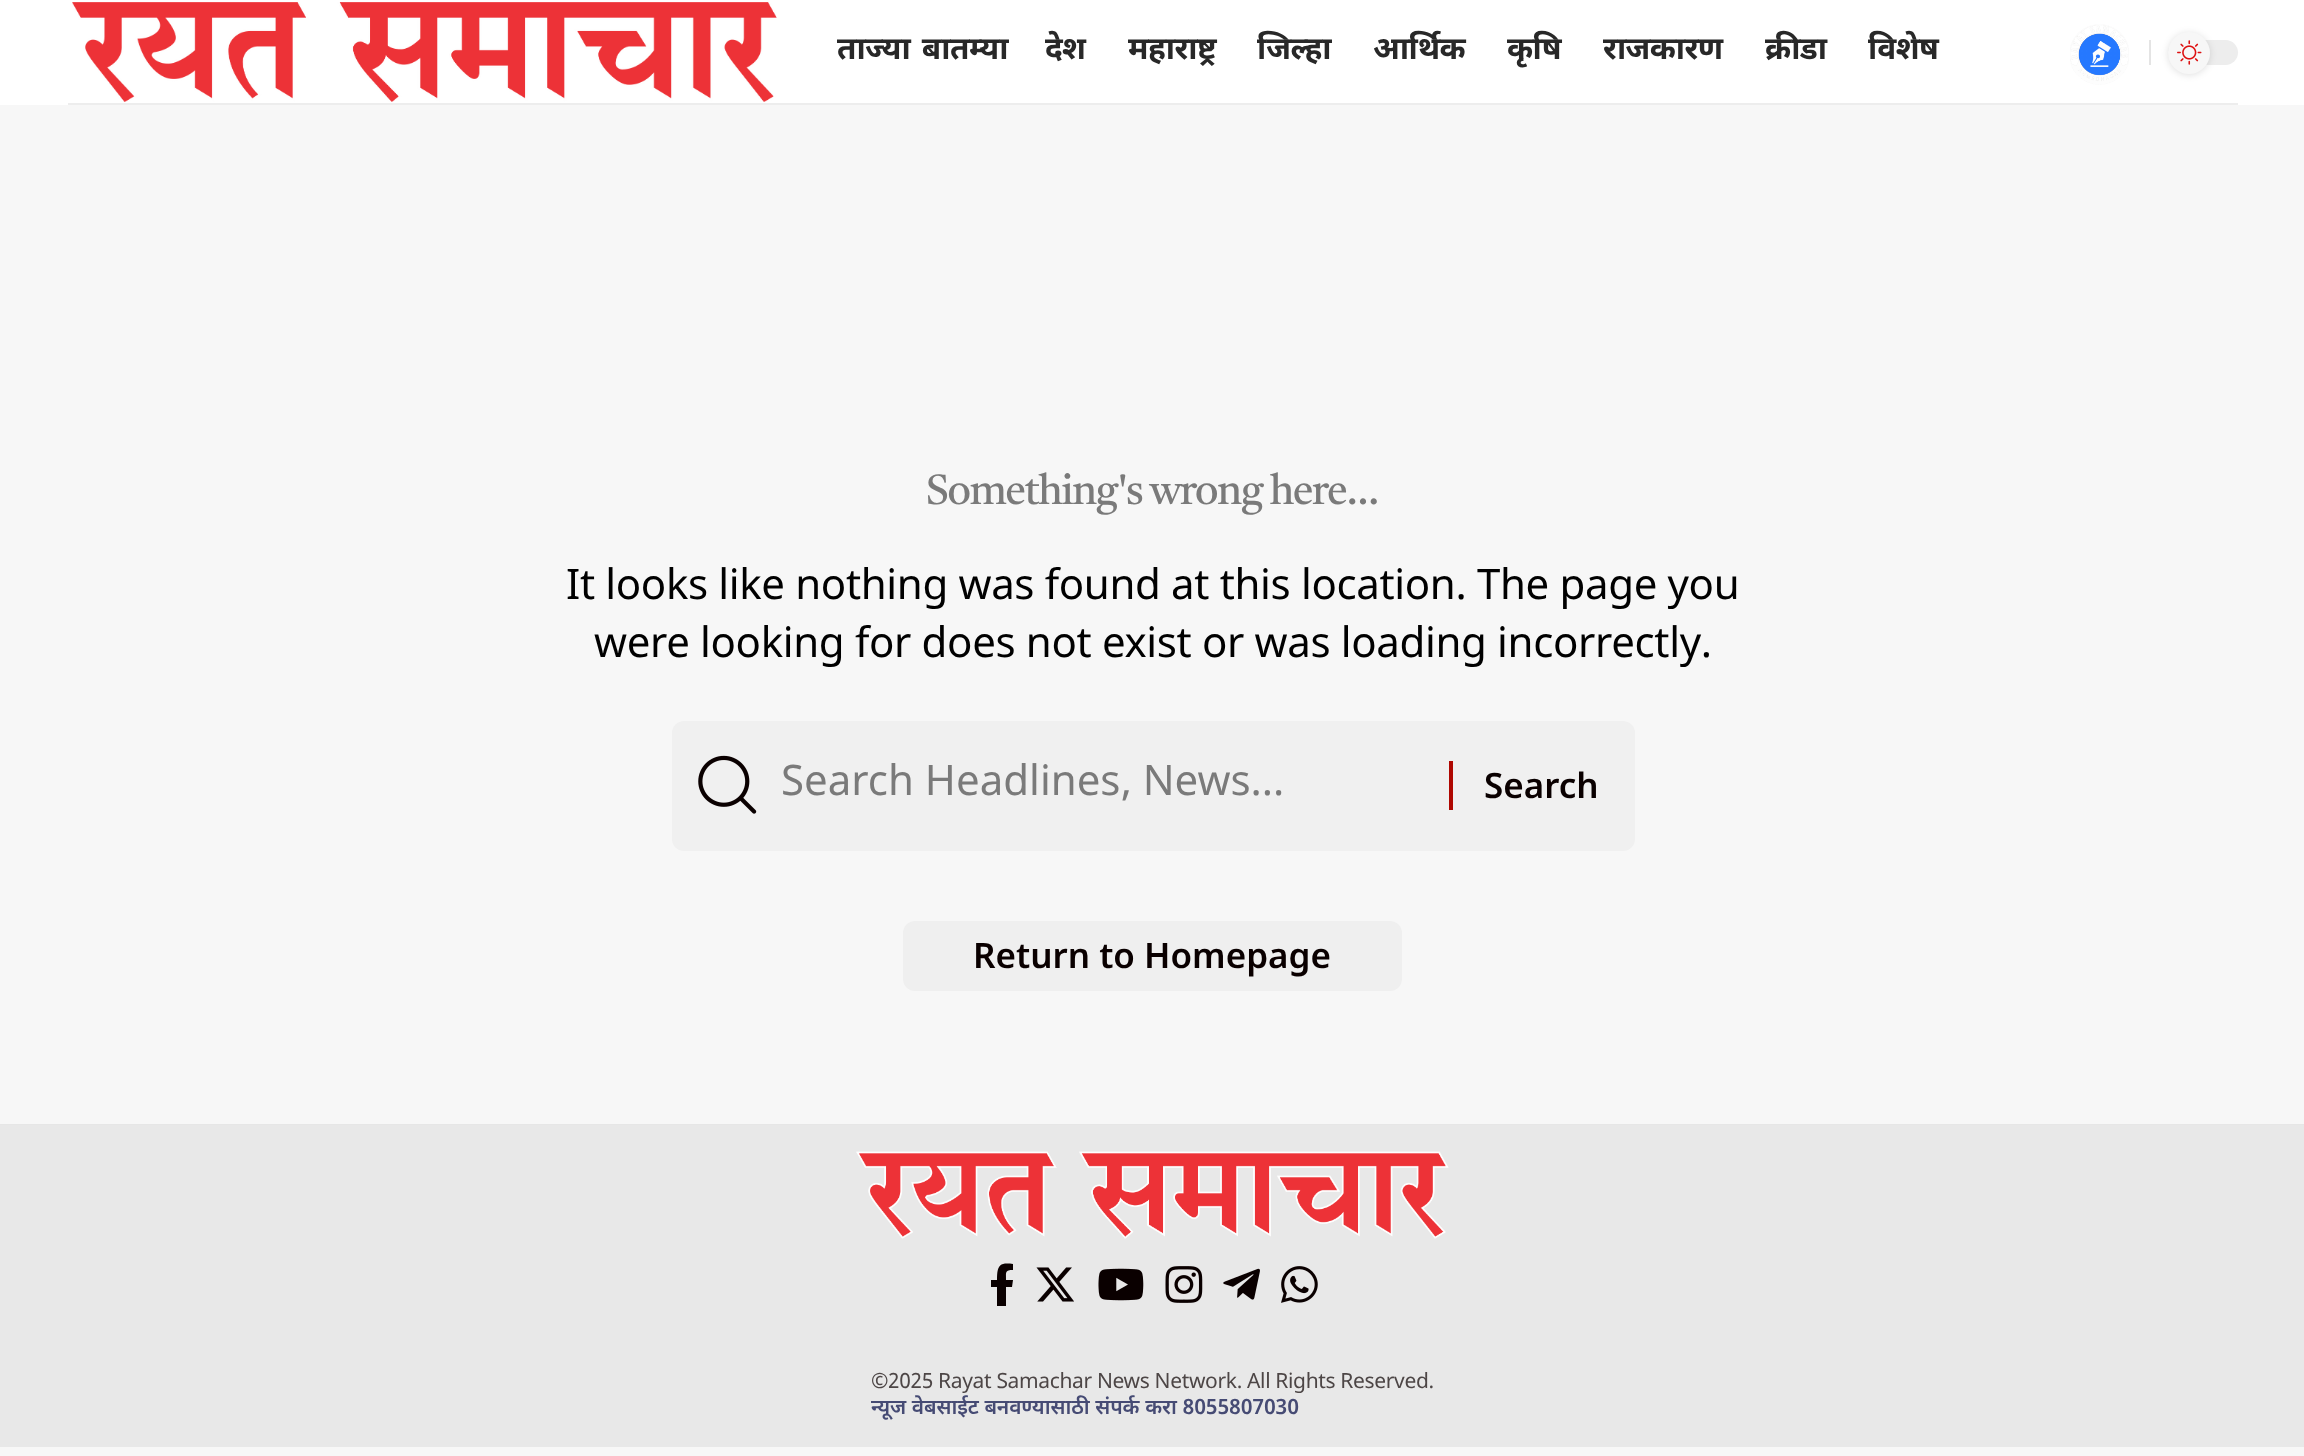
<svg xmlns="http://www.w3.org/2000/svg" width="2304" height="1456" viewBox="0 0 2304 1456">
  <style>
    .t1 { font: bold 31.5px Noto Sans Devanagari; letter-spacing: -0.6px; fill: #282828; }
    .t2 { font: 42px Tiro Devanagari Marathi; letter-spacing: -1.75px; fill: #7a7a7a; }
    .t3 { font: 42px Noto Sans Devanagari; letter-spacing: -0.35px; fill: #000; }
    .t4 { font: 42px Noto Sans Devanagari; fill: #7a7a7a; }
    .t5 { font: 600 35px Noto Sans; fill: #0a0000; }
    .t6 { font: 21px Noto Sans Devanagari; letter-spacing: -0.35px; fill: #4d4646; }
    .t7 { font: 600 21px Noto Sans Devanagari; letter-spacing: -0.15px; fill: #464b74; }
  </style>
  <rect width="100%" height="100%" fill="#f7f7f7"/>
  <rect x="0" y="0" width="2304" height="105" fill="#fff"/>
  <image x="72" y="2" width="705" height="100" href="images/1.png"/>
  <text x="837" y="59" word-spacing="4" class="t1">ताज्या बातम्या</text>
  <text x="1045" y="59" class="t1">देश</text>
  <text x="1128" y="59" class="t1">महाराष्ट्र</text>
  <text x="1257" y="59" class="t1">जिल्हा</text>
  <text x="1373" y="59" class="t1">आर्थिक</text>
  <text x="1507" y="59" class="t1">कृषि</text>
  <text x="1603" y="59" class="t1">राजकारण</text>
  <text x="1765" y="59" class="t1">क्रीडा</text>
  <text x="1868" y="59" class="t1">विशेष</text>
  <image x="2070" y="24" width="59" height="61" href="images/2.png"/>
  <rect x="2149" y="40" width="2" height="25" fill="#e4e4e4"/>
  <rect x="2168" y="40" width="70" height="25" rx="12.5" fill="#ededed"/>
  <rect x="2168" y="33" width="42" height="42" rx="21" fill="#0000001f" filter="blur(3.5px)"/>
  <circle cx="2189" cy="53" r="21" fill="#f7f7f7"/>
  <image x="2177" y="40" width="25" height="25" href="images/3.png"/>
  <rect x="68" y="103" width="2170" height="2" fill="#ededed"/>
  <text x="926" y="504" class="t2">Something's wrong here...</text>
  <text x="566" y="599" class="t3">It looks like nothing was found at this location. The page you</text>
  <text x="594" y="657" class="t3">were looking for does not exist or was loading incorrectly.</text>
  <rect x="672" y="721" width="963" height="130" rx="12" fill="#f0f0f0"/>
  <image x="698" y="755" width="59" height="59" href="images/4.png"/>
  <text x="781" y="795" class="t4">Search Headlines, News...</text>
  <rect x="1449" y="761" width="4" height="49" fill="#af0701"/>
  <text x="1484" y="798" class="t5">Search</text>
  <rect x="903" y="921" width="499" height="70" rx="12" fill="#efefef"/>
  <text x="973" y="968" class="t5">Return to Homepage</text>
  <rect x="0" y="1124" width="2304" height="1" fill="#e6e6e6"/>
  <rect x="0" y="1125" width="2304" height="322" fill="#e8e8e8"/>
  <image x="856" y="1151" width="593" height="88" href="images/5.png"/>
  <path d="M1012 1287L1013 1280H1006C1006 1272 1005 1270 1013 1270V1264C999 1262 997 1266 997 1280H991V1287H997V1306H1006V1287Z" fill="#0a0000"/>
  <image x="1036" y="1267" width="38" height="35" href="images/6.png"/>
  <image x="1098" y="1268" width="46" height="33" href="images/7.png"/>
  <image x="1165" y="1266" width="38" height="37" href="images/8.png"/>
  <image x="1223" y="1268" width="37" height="32" href="images/9.png"/>
  <image x="1281" y="1266" width="37" height="37" href="images/10.png"/>
  <text x="871" y="1388" class="t6">©2025 Rayat Samachar News Network. All Rights Reserved.</text>
  <text x="871" y="1414" word-spacing="0.5" class="t7">न्यूज वेबसाईट बनवण्यासाठी संपर्क करा 8055807030</text>
</svg>
